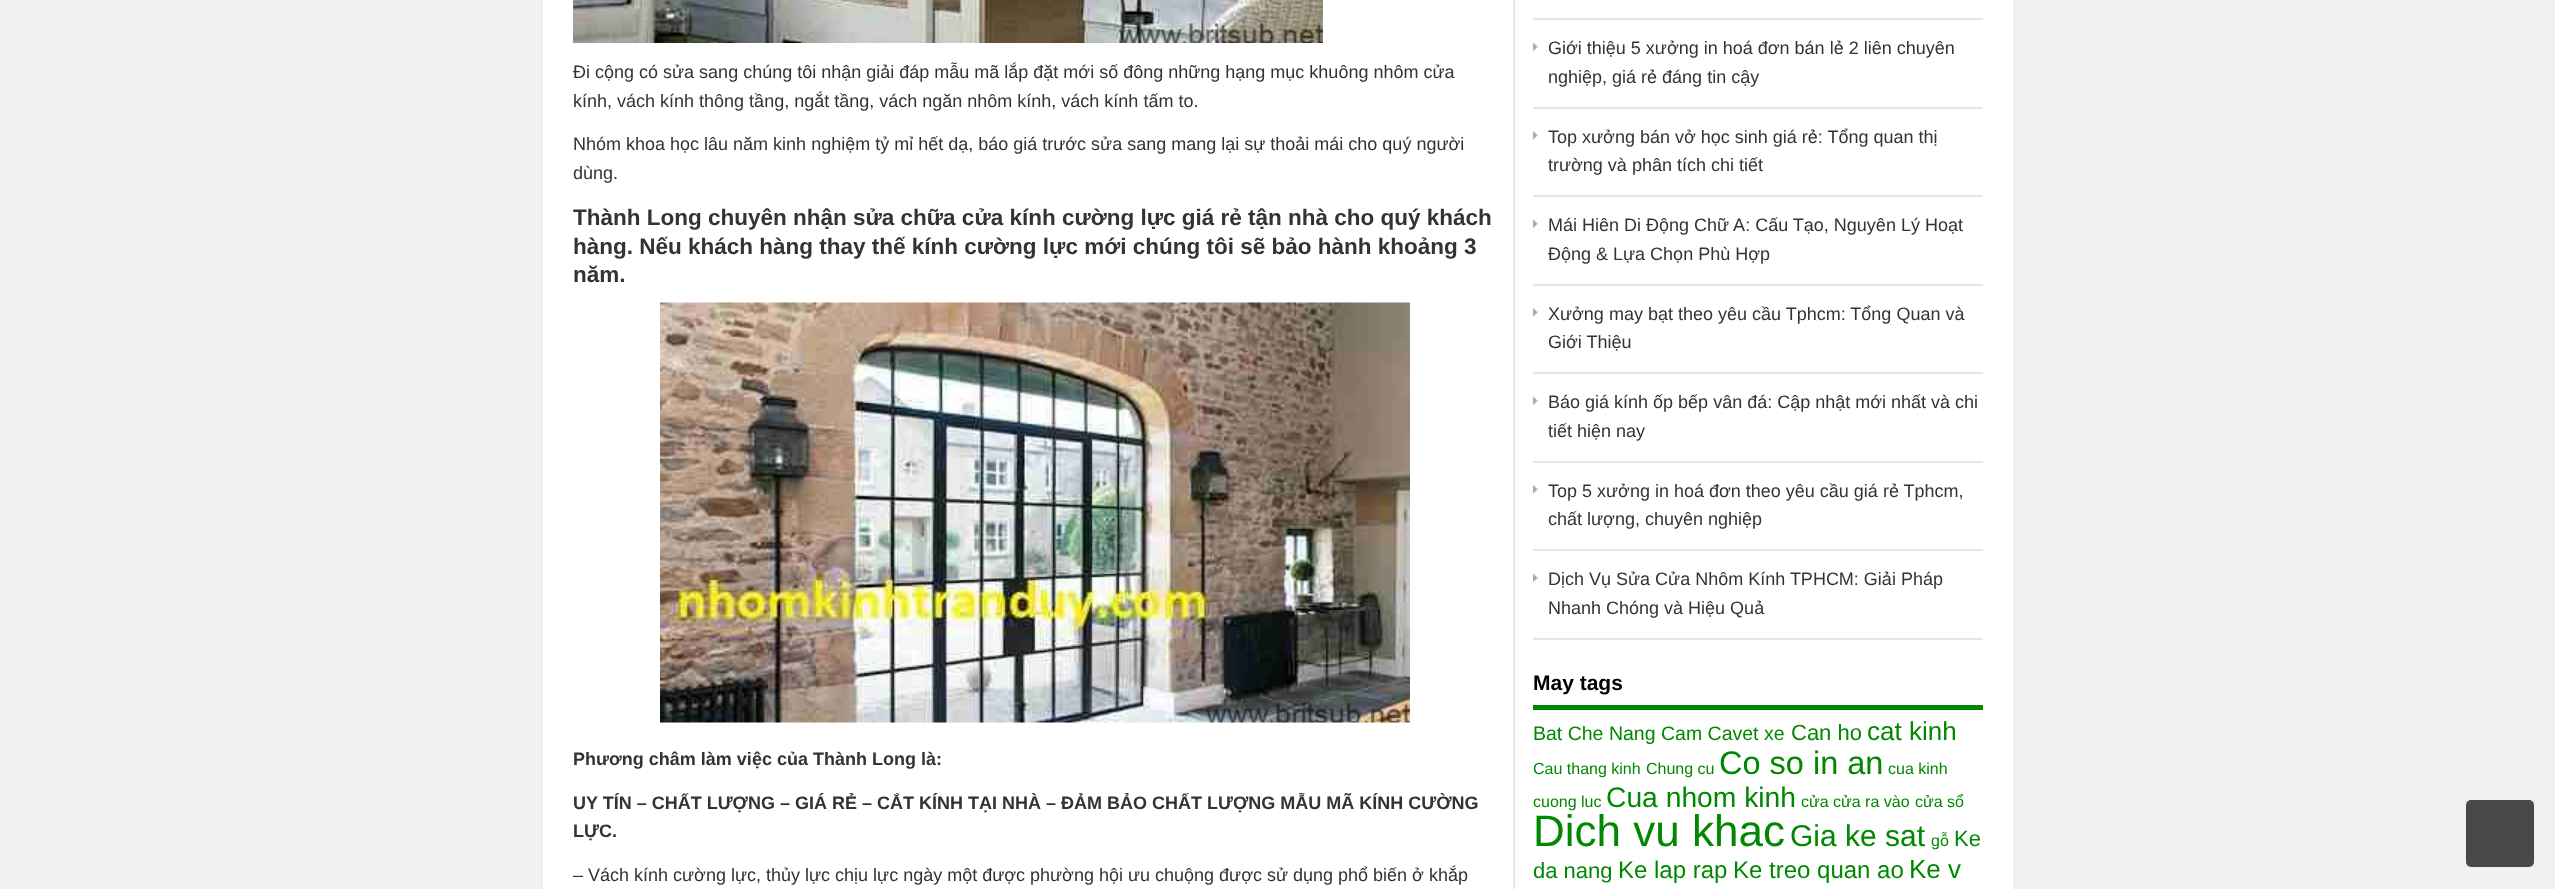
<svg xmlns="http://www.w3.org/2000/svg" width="2555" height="889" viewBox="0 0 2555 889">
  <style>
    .t1 { font: 18px Liberation Sans; fill: #333; }
    .t2 { font: bold 22.5px Liberation Sans; fill: #333; }
    .t3 { font: bold 18px Liberation Sans; fill: #333; }
    .t4 { font: bold 21px Liberation Sans; fill: #000; }
    .t5 { font: 19.5px Liberation Sans; fill: #080; }
    .t6 { font: 22px Liberation Sans; fill: #080; }
    .t7 { font: 26px Liberation Sans; fill: #080; }
    .t8 { font: 16px Liberation Sans; fill: #080; }
    .t9 { font: 32.5px Liberation Sans; fill: #080; }
    .t10 { font: 28.25px Liberation Sans; fill: #080; }
    .t11 { font: 44px Liberation Sans; fill: #080; }
    .t12 { font: 30px Liberation Sans; fill: #080; }
    .t13 { font: 24px Liberation Sans; fill: #080; }
  </style>
  <rect width="100%" height="100%" fill="#f0f0f0"/>
  <rect x="543" y="0" width="1470" height="889" fill="#fff"/>
  <image x="1513" y="0" width="2" height="889" href="images/1.png"/>
  <image x="573" y="0" width="750" height="43" href="images/2.png"/>
  <text x="573" y="78" class="t1">Đi cộng có sửa sang chúng tôi nhận giải đáp mẫu mã lắp đặt mới số đông những hạng mục khuông nhôm cửa</text>
  <text x="573" y="107" class="t1">kính, vách kính thông tầng, ngắt tầng, vách ngăn nhôm kính, vách kính tấm to.</text>
  <text x="573" y="150" class="t1">Nhóm khoa học lâu năm kinh nghiệm tỷ mỉ hết dạ, báo giá trước sửa sang mang lại sự thoải mái cho quý người</text>
  <text x="573" y="179" class="t1">dùng.</text>
  <text x="573" y="225" class="t2">Thành Long chuyên nhận sửa chữa cửa kính cường lực giá rẻ tận nhà cho quý khách</text>
  <text x="573" y="254" class="t2">hàng. Nếu khách hàng thay thế kính cường lực mới chúng tôi sẽ bảo hành khoảng 3</text>
  <text x="573" y="282" class="t2">năm.</text>
  <image x="660" y="302" width="750" height="421" href="images/3.png"/>
  <text x="573" y="765" class="t3">Phương châm làm việc của Thành Long là:</text>
  <text x="573" y="809" class="t3">UY TÍN – CHẤT LƯỢNG – GIÁ RẺ – CẮT KÍNH TẠI NHÀ – ĐẢM BẢO CHẤT LƯỢNG MẪU MÃ KÍNH CƯỜNG</text>
  <text x="573" y="837" class="t3">LỰC.</text>
  <text x="573" y="881" class="t1">– Vách kính cường lực, thủy lực chịu lực ngày một được phường hội ưu chuộng được sử dụng phổ biến ở khắp</text>
  <rect x="1533" y="18" width="450" height="2" fill="#e6e6e6"/>
  <image x="1533" y="42" width="5" height="9" href="images/4.png"/>
  <rect x="1533" y="107" width="450" height="2" fill="#e6e6e6"/>
  <text x="1548" y="54" class="t1">Giới thiệu 5 xưởng in hoá đơn bán lẻ 2 liên chuyên</text>
  <text x="1548" y="83" class="t1">nghiệp, giá rẻ đáng tin cậy</text>
  <image x="1533" y="131" width="5" height="9" href="images/5.png"/>
  <rect x="1533" y="195" width="450" height="2" fill="#e6e6e6"/>
  <text x="1548" y="143" class="t1">Top xưởng bán vở học sinh giá rẻ: Tổng quan thị</text>
  <text x="1548" y="171" class="t1">trường và phân tích chi tiết</text>
  <image x="1533" y="219" width="5" height="9" href="images/4.png"/>
  <rect x="1533" y="284" width="450" height="2" fill="#e6e6e6"/>
  <text x="1548" y="231" class="t1">Mái Hiên Di Động Chữ A: Cấu Tạo, Nguyên Lý Hoạt</text>
  <text x="1548" y="260" class="t1">Động &amp; Lựa Chọn Phù Hợp</text>
  <image x="1533" y="308" width="5" height="9" href="images/5.png"/>
  <rect x="1533" y="372" width="450" height="2" fill="#e6e6e6"/>
  <text x="1548" y="320" class="t1">Xưởng may bạt theo yêu cầu Tphcm: Tổng Quan và</text>
  <text x="1548" y="348" class="t1">Giới Thiệu</text>
  <image x="1533" y="396" width="5" height="9" href="images/4.png"/>
  <rect x="1533" y="461" width="450" height="2" fill="#e6e6e6"/>
  <text x="1548" y="408" class="t1">Báo giá kính ốp bếp vân đá: Cập nhật mới nhất và chi</text>
  <text x="1548" y="437" class="t1">tiết hiện nay</text>
  <image x="1533" y="485" width="5" height="9" href="images/5.png"/>
  <rect x="1533" y="549" width="450" height="2" fill="#e6e6e6"/>
  <text x="1548" y="497" class="t1">Top 5 xưởng in hoá đơn theo yêu cầu giá rẻ Tphcm,</text>
  <text x="1548" y="525" class="t1">chất lượng, chuyên nghiệp</text>
  <image x="1533" y="573" width="5" height="9" href="images/4.png"/>
  <rect x="1533" y="638" width="450" height="2" fill="#e6e6e6"/>
  <text x="1548" y="585" class="t1">Dịch Vụ Sửa Cửa Nhôm Kính TPHCM: Giải Pháp</text>
  <text x="1548" y="614" class="t1">Nhanh Chóng và Hiệu Quả</text>
  <rect x="1533" y="705" width="450" height="5" fill="#080"/>
  <text x="1533" y="690" class="t4">May tags</text>
  <text x="1533" y="740" class="t5">Bat Che Nang</text>
  <text x="1661" y="740" class="t5">Cam Cavet xe</text>
  <text x="1791" y="740" class="t6">Can ho</text>
  <text x="1867" y="740" class="t7">cat kinh</text>
  <text x="1533" y="774" class="t8">Cau thang kinh</text>
  <text x="1646" y="774" class="t8">Chung cu</text>
  <text x="1719" y="774" class="t9">Co so in an</text>
  <text x="1888" y="774" class="t8">cua kinh</text>
  <text x="1533" y="807" class="t8">cuong luc</text>
  <text x="1606" y="807" class="t10">Cua nhom kinh</text>
  <text x="1801" y="807" class="t8">cửa</text>
  <text x="1833" y="807" class="t8">cửa ra vào</text>
  <text x="1915" y="807" class="t8">cửa sổ</text>
  <text x="1533" y="846" class="t11">Dich vu khac</text>
  <text x="1790" y="846" class="t12">Gia ke sat</text>
  <text x="1931" y="846" class="t8">gỗ</text>
  <text x="1954" y="846" class="t6">Ke</text>
  <text x="1533" y="878" class="t6">da nang</text>
  <text x="1618" y="878" class="t13">Ke lap rap</text>
  <text x="1733" y="878" class="t13">Ke treo quan ao</text>
  <text x="1909" y="878" class="t7">Ke v</text>
  <rect x="2466" y="800" width="68" height="67" rx="5" fill="#484848"/>
</svg>
